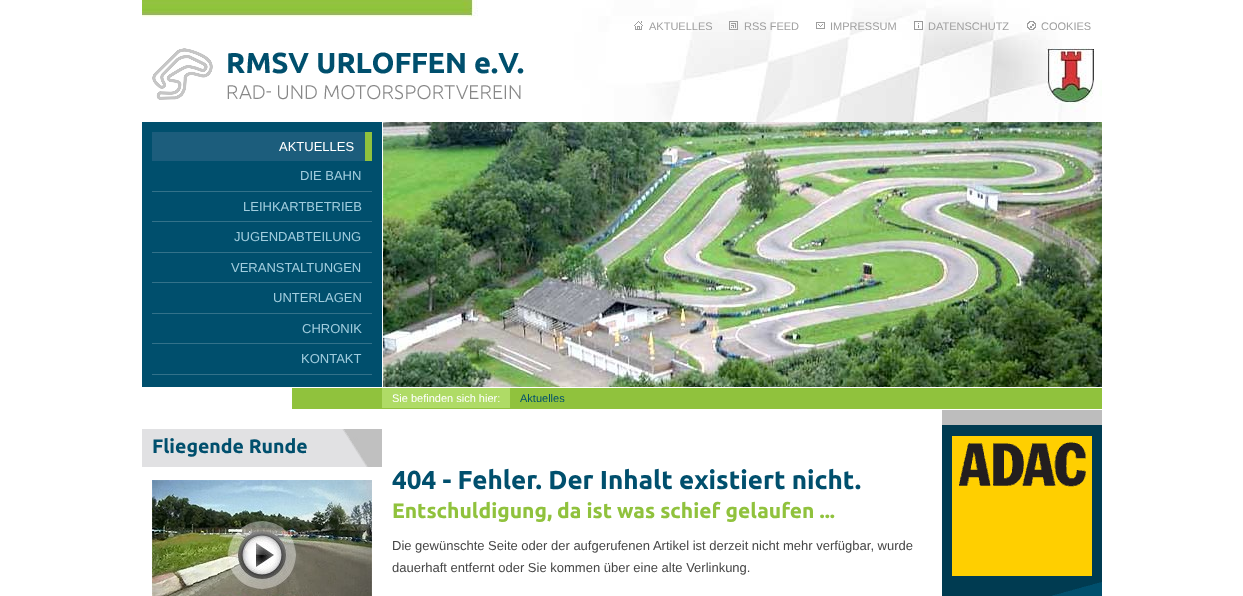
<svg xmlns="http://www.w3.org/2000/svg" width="1243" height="596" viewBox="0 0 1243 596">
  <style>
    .t1 { font: 11px Liberation Sans; fill: #9e9e9e; }
    .t2 { font: 13px Liberation Sans; fill: #fff; }
    .t3 { font: 13px Liberation Sans; fill: #a1cdde; }
    .t4 { font: 11px Liberation Sans; fill: #fff; }
    .t5 { font: 11px Liberation Sans; fill: #004f6d; }
    .t6 { font: bold 19.5px Ubuntu; fill: #004f6d; }
    .t7 { font: bold 26px Ubuntu; fill: #004f6d; }
    .t8 { font: bold 21px Ubuntu; fill: #90c23d; }
    .t9 { font: 13px Liberation Sans; fill: #464646; }
  </style>
  <rect width="100%" height="100%" fill="#fff"/>
  <image x="142" y="0" width="960" height="256" href="images/1.png"/>
  <image x="634" y="21" width="9" height="9" href="images/2.png"/>
  <text x="649" y="30" class="t1">AKTUELLES</text>
  <image x="729" y="21" width="9" height="9" href="images/3.png"/>
  <text x="744" y="30" class="t1">RSS FEED</text>
  <image x="816" y="22" width="9" height="7" href="images/4.png"/>
  <text x="830" y="30" class="t1">IMPRESSUM</text>
  <image x="914" y="21" width="9" height="9" href="images/5.png"/>
  <text x="928" y="30" class="t1">DATENSCHUTZ</text>
  <image x="1027" y="21" width="9" height="9" href="images/6.png"/>
  <text x="1041" y="30" class="t1">COOKIES</text>
  <image x="152" y="48" width="372" height="52" href="images/7.png"/>
  <rect x="142" y="122" width="240" height="265" fill="#004f6d"/>
  <rect x="152" y="132" width="213" height="29" fill="#1c5d7c"/>
  <rect x="365" y="132" width="7" height="29" fill="#90c23d"/>
  <text x="279" y="151" class="t2">AKTUELLES</text>
  <rect x="152" y="191" width="220" height="1" fill="#33728a"/>
  <text x="300" y="180" class="t3">DIE BAHN</text>
  <rect x="152" y="221" width="220" height="1" fill="#33728a"/>
  <text x="243" y="211" class="t3">LEIHKARTBETRIEB</text>
  <rect x="152" y="252" width="220" height="1" fill="#33728a"/>
  <text x="234" y="241" class="t3">JUGENDABTEILUNG</text>
  <rect x="152" y="282" width="220" height="1" fill="#33728a"/>
  <text x="231" y="272" class="t3">VERANSTALTUNGEN</text>
  <rect x="152" y="313" width="220" height="1" fill="#33728a"/>
  <text x="273" y="302" class="t3">UNTERLAGEN</text>
  <rect x="152" y="343" width="220" height="1" fill="#33728a"/>
  <text x="302" y="333" class="t3">CHRONIK</text>
  <rect x="152" y="374" width="220" height="1" fill="#33728a"/>
  <text x="301" y="363" class="t3">KONTAKT</text>
  <image x="383" y="122" width="719" height="265" href="images/8.png"/>
  <rect x="292" y="388" width="810" height="21" fill="#90c23d"/>
  <rect x="382" y="388" width="128" height="20" fill="#afdb66"/>
  <text x="392" y="402" class="t4">Sie befinden sich hier:</text>
  <text x="520" y="402" class="t5">Aktuelles</text>
  <rect x="142" y="429" width="226" height="38" fill="#e1e1e3"/>
  <image x="342" y="429" width="40" height="38" href="images/9.png"/>
  <text x="152" y="453" class="t6">Fliegende Runde</text>
  <image x="152" y="480" width="220" height="116" href="images/10.png"/>
  <image x="942" y="410" width="160" height="186" href="images/11.png"/>
  <text x="392" y="489" class="t7">404 - Fehler. Der Inhalt existiert nicht.</text>
  <text x="392" y="518" class="t8">Entschuldigung, da ist was schief gelaufen ...</text>
  <text x="392" y="550" class="t9">Die gewünschte Seite oder der aufgerufenen Artikel ist derzeit nicht mehr verfügbar, wurde</text>
  <text x="392" y="572" class="t9">dauerhaft entfernt oder Sie kommen über eine alte Verlinkung.</text>
</svg>
